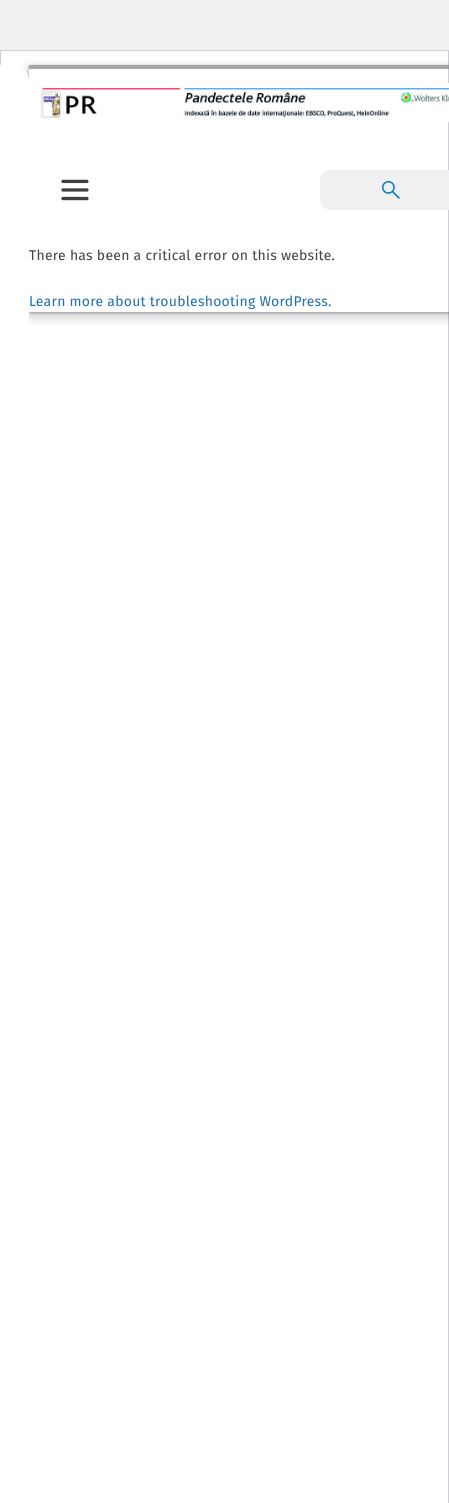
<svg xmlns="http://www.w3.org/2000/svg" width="449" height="1503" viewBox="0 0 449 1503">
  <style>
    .t1 { font: 14px Fira Sans; letter-spacing: 0.25px; fill: #444; }
    .t2 { font: 14px Fira Sans; letter-spacing: 0.25px; fill: #2271b1; }
  </style>
  <defs>
    <clipPath id="clip1"><path d="M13 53H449V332H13ZM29 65H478V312H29Z" clip-rule="evenodd"/></clipPath>
    <clipPath id="clip2"><path d="M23 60H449V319H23ZM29 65H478V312H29Z" clip-rule="evenodd"/></clipPath>
  </defs>
  <rect width="100%" height="100%" fill="#f1f1f1"/>
  <rect x="0.5" y="50.5" width="448" height="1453" fill="#fff" stroke="#ccd0d4"/>
  <g clip-path="url(#clip1)">
    <rect x="26" y="66" width="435" height="253" fill="#00000026" filter="blur(4px)"/>
  </g>
  <g clip-path="url(#clip2)">
    <rect x="29" y="66" width="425" height="247" fill="#0000004d" filter="blur(1.5px)"/>
  </g>
  <path d="M-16 65H13C22 65 29 72 29 81V1503C29 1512 22 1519 13 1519H-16Z" fill="#fff"/>
  <rect x="29" y="65" width="420" height="4" fill="#858585b8"/>
  <image x="40" y="83" width="409" height="40" href="images/1.png"/>
  <image x="61" y="179" width="28" height="22" href="images/2.png"/>
  <rect x="320" y="170" width="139" height="40" rx="10" fill="#f0f0f0"/>
  <image x="382" y="181" width="18" height="18" href="images/3.png"/>
  <text x="29" y="260" class="t1">There has been a critical error on this website.</text>
  <text x="29" y="306" class="t2">Learn more about troubleshooting WordPress.</text>
</svg>
